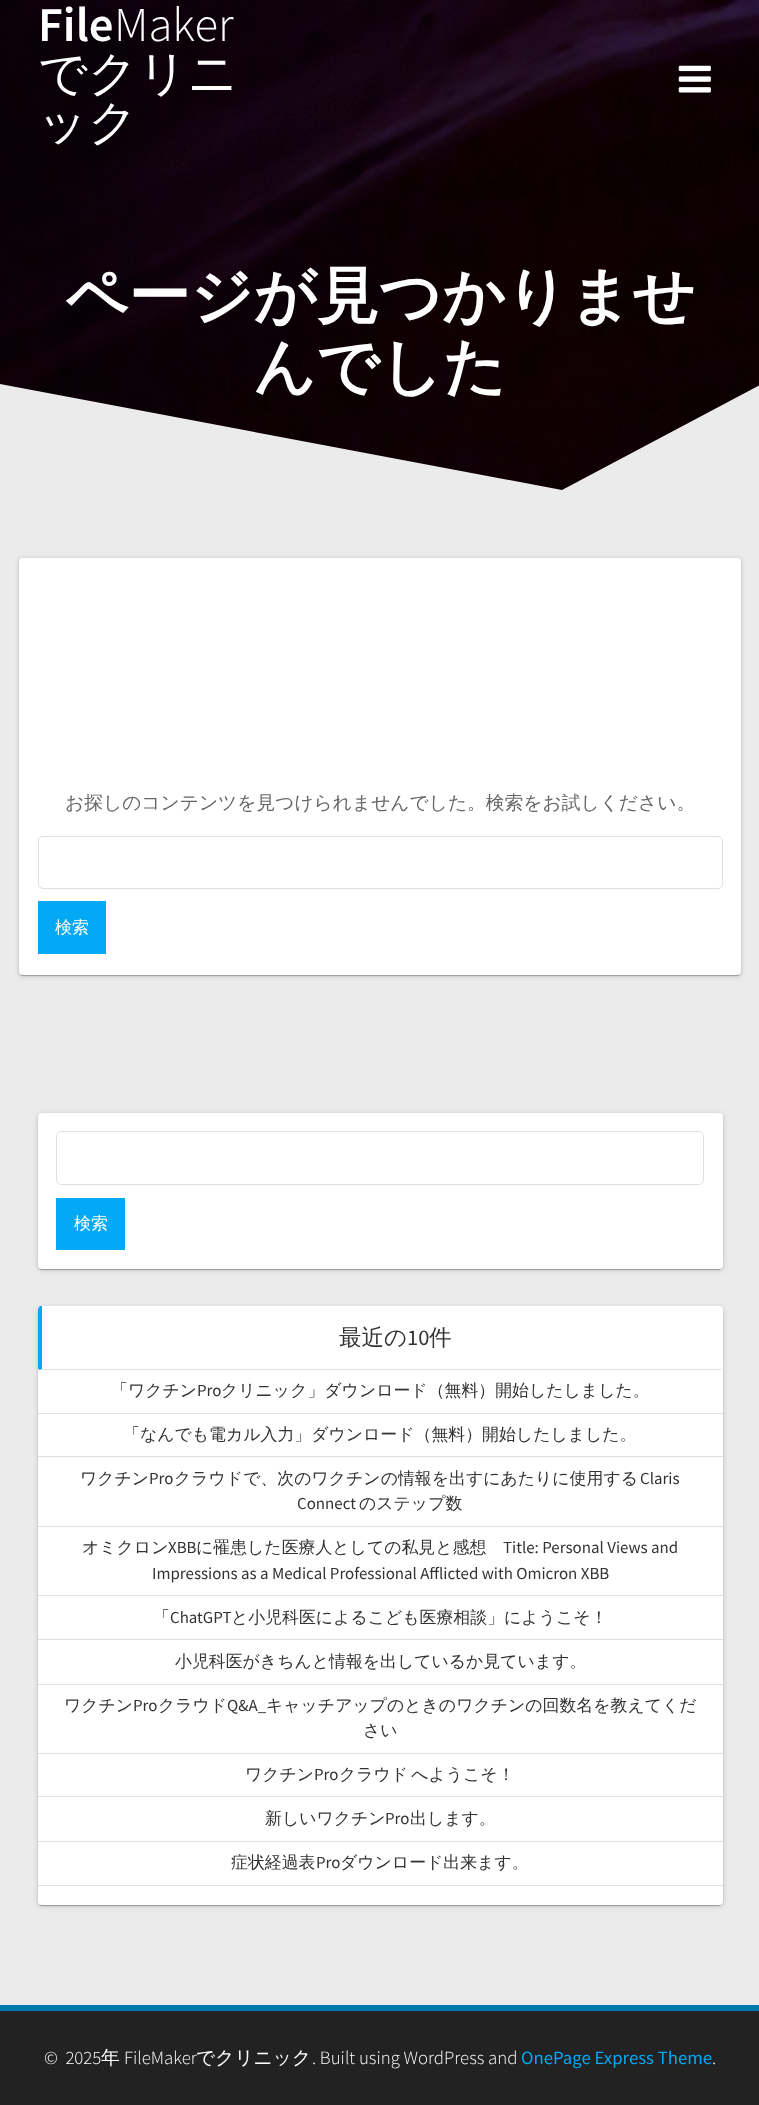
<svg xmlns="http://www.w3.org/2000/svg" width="759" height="2105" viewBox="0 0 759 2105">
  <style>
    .t1 { font: 600 48.75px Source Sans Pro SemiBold; fill: #fff; }
    .t2 { font: 300 48.75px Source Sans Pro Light; fill: #fff; }
    .t3 { font: 500 48.75px WenQuanYi Zen Hei; fill: #fff; }
    .t4 { font: bold 61.9px WenQuanYi Zen Hei; fill: #fff; }
    .t5 { font: 500 18.75px WenQuanYi Zen Hei; fill: #666; }
    .t6 { font: 500 17px WenQuanYi Zen Hei; fill: #fff; }
    .t7 { font: 500 22.5px WenQuanYi Zen Hei; fill: #333; }
    .t8 { font: 22.5px Source Sans Pro; fill: #333; }
    .t9 { font: 500 16.9px WenQuanYi Zen Hei; fill: #333; }
    .t10 { font: 16.9px Source Sans Pro; fill: #333; }
    .t11 { font: 300 18.75px Source Sans Pro Light; fill: #fff; }
    .t12 { font: 500 18.75px WenQuanYi Zen Hei; fill: #fff; }
    .t13 { font: 18.75px Source Sans Pro; fill: #03a9f4; }
  </style>
  <rect width="100%" height="100%" fill="#fff"/>
  <image x="758" y="0" width="1" height="387" href="images/1.png"/>
  <image x="0" y="0" width="759" height="490" href="images/3.png"/>
  <text x="38" y="41" class="t1">File</text>
  <text x="114" y="41" class="t2">Maker</text>
  <text x="38" y="90" class="t3">でクリニ</text>
  <text x="38" y="139" class="t3">ック</text>
  <image x="678" y="65" width="33" height="28" href="images/2.png"/>
  <text x="65" y="317" class="t4">ページが見つかりませ</text>
  <text x="253" y="388" class="t4">んでした</text>
  <path d="M562 490L0 384V496H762V384Z" fill="#ebebeb"/>
  <rect x="0" y="496" width="759" height="1509" fill="#ebebeb"/>
  <rect x="19" y="559" width="722" height="417" rx="4" fill="#0000001f" filter="blur(3px)"/>
  <rect x="21" y="564" width="718" height="412" rx="1" fill="#00000033" filter="blur(0.5px)"/>
  <rect x="19" y="559" width="722" height="417" rx="4" fill="#00000024" filter="blur(1px)"/>
  <rect x="19" y="558" width="722" height="417" rx="4" fill="#fff"/>
  <text x="65" y="809" class="t5">お探しのコンテンツを見つけられませんでした。検索をお試しください。</text>
  <rect x="38.5" y="836.5" width="684" height="52" rx="4.5" fill="none" stroke="#e0e0e0"/>
  <rect x="38" y="901" width="68" height="53" fill="#03a9f4"/>
  <text x="55" y="933" class="t6">検索</text>
  <rect x="38" y="1114" width="685" height="156" rx="4" fill="#0000001f" filter="blur(3px)"/>
  <rect x="40" y="1119" width="680" height="151" rx="1" fill="#00000033" filter="blur(0.5px)"/>
  <rect x="38" y="1114" width="685" height="156" rx="4" fill="#00000024" filter="blur(1px)"/>
  <rect x="38" y="1113" width="685" height="156" rx="4" fill="#fff"/>
  <rect x="56.5" y="1131.5" width="647" height="53" rx="4.5" fill="none" stroke="#e0e0e0"/>
  <rect x="56" y="1198" width="69" height="52" fill="#03a9f4"/>
  <text x="74" y="1229" class="t6">検索</text>
  <rect x="38" y="1308" width="685" height="598" rx="4" fill="#0000001f" filter="blur(3px)"/>
  <rect x="40" y="1313" width="680" height="593" rx="1" fill="#00000033" filter="blur(0.5px)"/>
  <rect x="38" y="1308" width="685" height="598" rx="4" fill="#00000024" filter="blur(1px)"/>
  <rect x="38" y="1306" width="685" height="599" rx="4" fill="#fff"/>
  <path d="M41 1370H719C721 1370 722 1368 722 1366C722 1368 721 1369 719 1369H42L39 1370Z" fill="#e0e0e0"/>
  <path d="M39 1370C38 1369 38 1367 38 1366V1310C38 1308 39 1307 40 1306H42V1369Z" fill="#03a9f4"/>
  <text x="339" y="1345" class="t7">最近の</text>
  <text x="407" y="1345" class="t8">10</text>
  <text x="429" y="1345" class="t7">件</text>
  <rect x="38" y="1413" width="685" height="1" fill="#e0e0e0"/>
  <text x="111" y="1396" class="t9">「ワクチン</text>
  <text x="197" y="1396" class="t10">Pro</text>
  <text x="221" y="1396" class="t9">クリニック」ダウンロード（無料）開始したしました。</text>
  <rect x="38" y="1456" width="685" height="1" fill="#e0e0e0"/>
  <text x="123" y="1440" class="t9">「なんでも電カル入力」ダウンロード（無料）開始したしました。</text>
  <rect x="38" y="1526" width="685" height="1" fill="#e0e0e0"/>
  <text x="80" y="1484" class="t9">ワクチン</text>
  <text x="149" y="1484" class="t10">Pro</text>
  <text x="174" y="1484" class="t9">クラウドで、次のワクチンの情報を出すにあたりに使用する</text>
  <text x="640" y="1484" class="t10">Claris</text>
  <text x="297" y="1509" class="t10">Connect</text>
  <text x="359" y="1509" class="t9">のステップ数</text>
  <rect x="38" y="1595" width="685" height="1" fill="#e0e0e0"/>
  <text x="82" y="1553" class="t9">オミクロン</text>
  <text x="168" y="1553" class="t10">XBB</text>
  <text x="196" y="1553" class="t9">に罹患した医療人としての私見と感想</text>
  <text x="503" y="1553" class="t10">Title: Personal Views and</text>
  <text x="152" y="1579" class="t10">Impressions as a Medical Professional Afflicted with Omicron XBB</text>
  <rect x="38" y="1639" width="685" height="1" fill="#e0e0e0"/>
  <text x="153" y="1623" class="t9">「</text>
  <text x="170" y="1623" class="t10">ChatGPT</text>
  <text x="231" y="1623" class="t9">と小児科医によるこども医療相談」にようこそ！</text>
  <rect x="38" y="1684" width="685" height="1" fill="#e0e0e0"/>
  <text x="175" y="1667" class="t9">小児科医がきちんと情報を出しているか見ています。</text>
  <rect x="38" y="1753" width="685" height="1" fill="#e0e0e0"/>
  <text x="64" y="1711" class="t9">ワクチン</text>
  <text x="133" y="1711" class="t10">Pro</text>
  <text x="158" y="1711" class="t9">クラウド</text>
  <text x="227" y="1711" class="t10">Q&amp;A_</text>
  <text x="266" y="1711" class="t9">キャッチアップのときのワクチンの回数名を教えてくだ</text>
  <text x="363" y="1736" class="t9">さい</text>
  <rect x="38" y="1796" width="685" height="1" fill="#e0e0e0"/>
  <text x="245" y="1780" class="t9">ワクチン</text>
  <text x="314" y="1780" class="t10">Pro</text>
  <text x="339" y="1780" word-spacing="-2" class="t9">クラウド へようこそ！</text>
  <rect x="38" y="1841" width="685" height="1" fill="#e0e0e0"/>
  <text x="265" y="1824" class="t9">新しいワクチン</text>
  <text x="385" y="1824" class="t10">Pro</text>
  <text x="410" y="1824" class="t9">出します。</text>
  <rect x="38" y="1885" width="685" height="1" fill="#e0e0e0"/>
  <text x="231" y="1868" class="t9">症状経過表</text>
  <text x="316" y="1868" class="t10">Pro</text>
  <text x="340" y="1868" class="t9">ダウンロード出来ます。</text>
  <rect x="0" y="2011" width="759" height="94" fill="#222"/>
  <rect x="0" y="2005" width="759" height="6" fill="#0079ad"/>
  <text x="44" y="2064" class="t11" xml:space="preserve">©  2025</text>
  <text x="101" y="2064" class="t12">年</text>
  <text x="124" y="2064" class="t11">FileMaker</text>
  <text x="196" y="2064" class="t12">でクリニック</text>
  <text x="312" y="2064" class="t11">. Built using WordPress and</text>
  <text x="521" y="2064" class="t13">OnePage Express Theme</text>
  <text x="712" y="2064" class="t11">.</text>
</svg>
